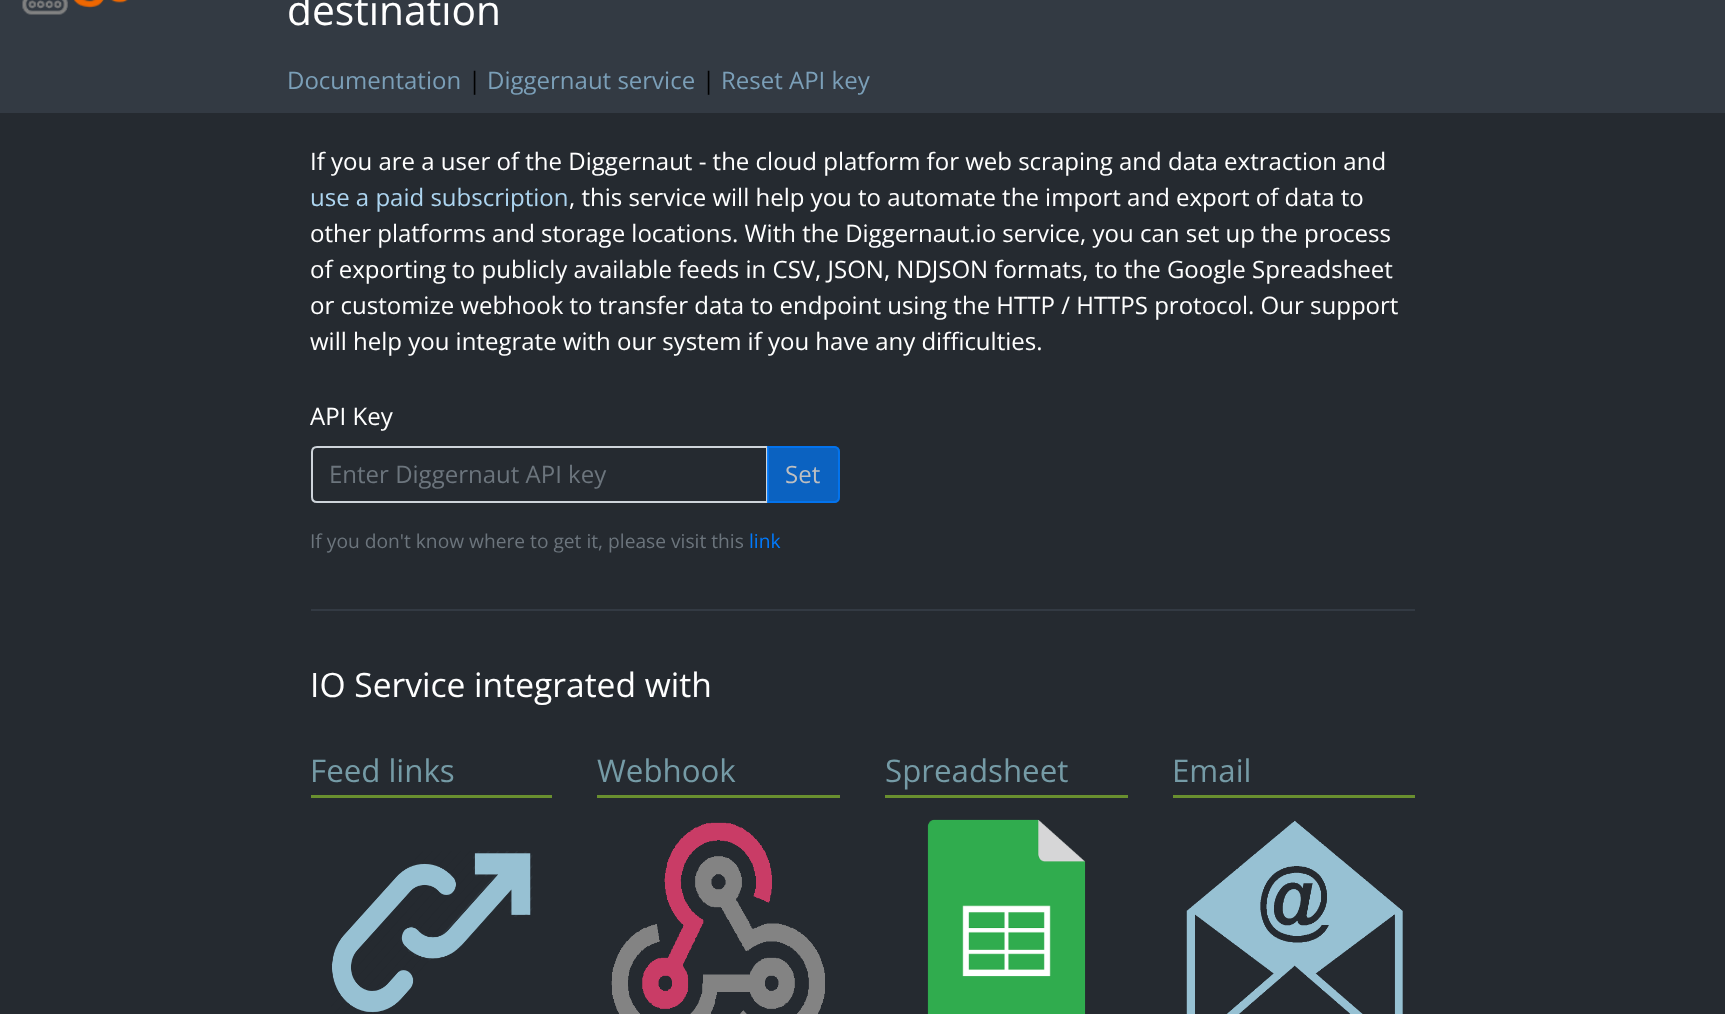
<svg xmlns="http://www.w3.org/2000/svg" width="1725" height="1014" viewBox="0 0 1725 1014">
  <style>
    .t1 { font: 40.75px Open Sans; fill: #fff; }
    .t2 { font: 24px Open Sans; fill: #7b9fb8; }
    .t3 { font: 24px Open Sans; fill: #000; }
    .t4 { font: 24px Open Sans; fill: #fff; }
    .t5 { font: 24px Open Sans; fill: #add5f0; }
    .t6 { font: 24px Open Sans; fill: #6c757d; }
    .t7 { font: 24px Open Sans; fill: #bebfc1; }
    .t8 { font: 19.2px Open Sans; fill: #6c757d; }
    .t9 { font: 19.2px Open Sans; fill: #007bff; }
    .t10 { font: 33.6px Open Sans; fill: #fff; }
    .t11 { font: 31.25px Open Sans; fill: #759ba6; }
  </style>
  <rect width="100%" height="100%" fill="#252a30"/>
  <rect x="0" y="0" width="1725" height="113" fill="#333a43"/>
  <image x="22" y="0" width="106" height="15" href="images/1.png"/>
  <text x="287" y="25" class="t1">destination</text>
  <text x="287" y="89" class="t2">Documentation</text>
  <text x="468" y="89" class="t3">|</text>
  <text x="487" y="89" class="t2">Diggernaut service</text>
  <text x="702" y="89" class="t3">|</text>
  <text x="721" y="89" class="t2">Reset API key</text>
  <text x="310" y="170" class="t4">If you are a user of the Diggernaut - the cloud platform for web scraping and data extraction and</text>
  <text x="310" y="206" class="t5">use a paid subscription</text>
  <text x="569" y="206" class="t4">, this service will help you to automate the import and export of data to</text>
  <text x="310" y="242" class="t4">other platforms and storage locations. With the Diggernaut.io service, you can set up the process</text>
  <text x="310" y="278" class="t4">of exporting to publicly available feeds in CSV, JSON, NDJSON formats, to the Google Spreadsheet</text>
  <text x="310" y="314" class="t4">or customize webhook to transfer data to endpoint using the HTTP / HTTPS protocol. Our support</text>
  <text x="310" y="350" class="t4">will help you integrate with our system if you have any difficulties.</text>
  <text x="310" y="425" class="t4">API Key</text>
  <path d="M317 447H767V502H317C314 502 312 500 312 497V452C312 449 314 447 317 447Z" fill="none" stroke="#ced4da" stroke-width="2"/>
  <text x="329" y="483" class="t6">Enter Diggernaut API key</text>
  <path d="M767 446H834C837.5 446 840 448.5 840 452V497C840 500.5 837.5 503 834 503H767Z" fill="#007bffb3"/>
  <path d="M768 447H834C837 447 839 449 839 452V497C839 500 837 502 834 502H768Z" fill="none" stroke="#007bffb3" stroke-width="2"/>
  <text x="785" y="483" class="t7">Set</text>
  <text x="310" y="548" class="t8">If you don't know where to get it, please visit this</text>
  <text x="749" y="548" class="t9">link</text>
  <rect x="311" y="609" width="1104" height="2" fill="#333a43"/>
  <text x="310" y="697" class="t10">IO Service integrated with</text>
  <rect x="311" y="795" width="241" height="3" fill="#698f2f"/>
  <text x="310" y="782" class="t11">Feed links</text>
  <image x="331" y="851" width="202" height="162" href="images/2.png"/>
  <rect x="597" y="795" width="243" height="3" fill="#698f2f"/>
  <text x="597" y="782" class="t11">Webhook</text>
  <image x="611" y="822" width="214" height="192" href="images/3.png"/>
  <rect x="885" y="795" width="243" height="3" fill="#698f2f"/>
  <text x="885" y="782" class="t11">Spreadsheet</text>
  <image x="927" y="819" width="159" height="195" href="images/4.png"/>
  <rect x="1173" y="795" width="242" height="3" fill="#698f2f"/>
  <text x="1172" y="782" class="t11">Email</text>
  <image x="1186" y="820" width="217" height="194" href="images/5.png"/>
</svg>
